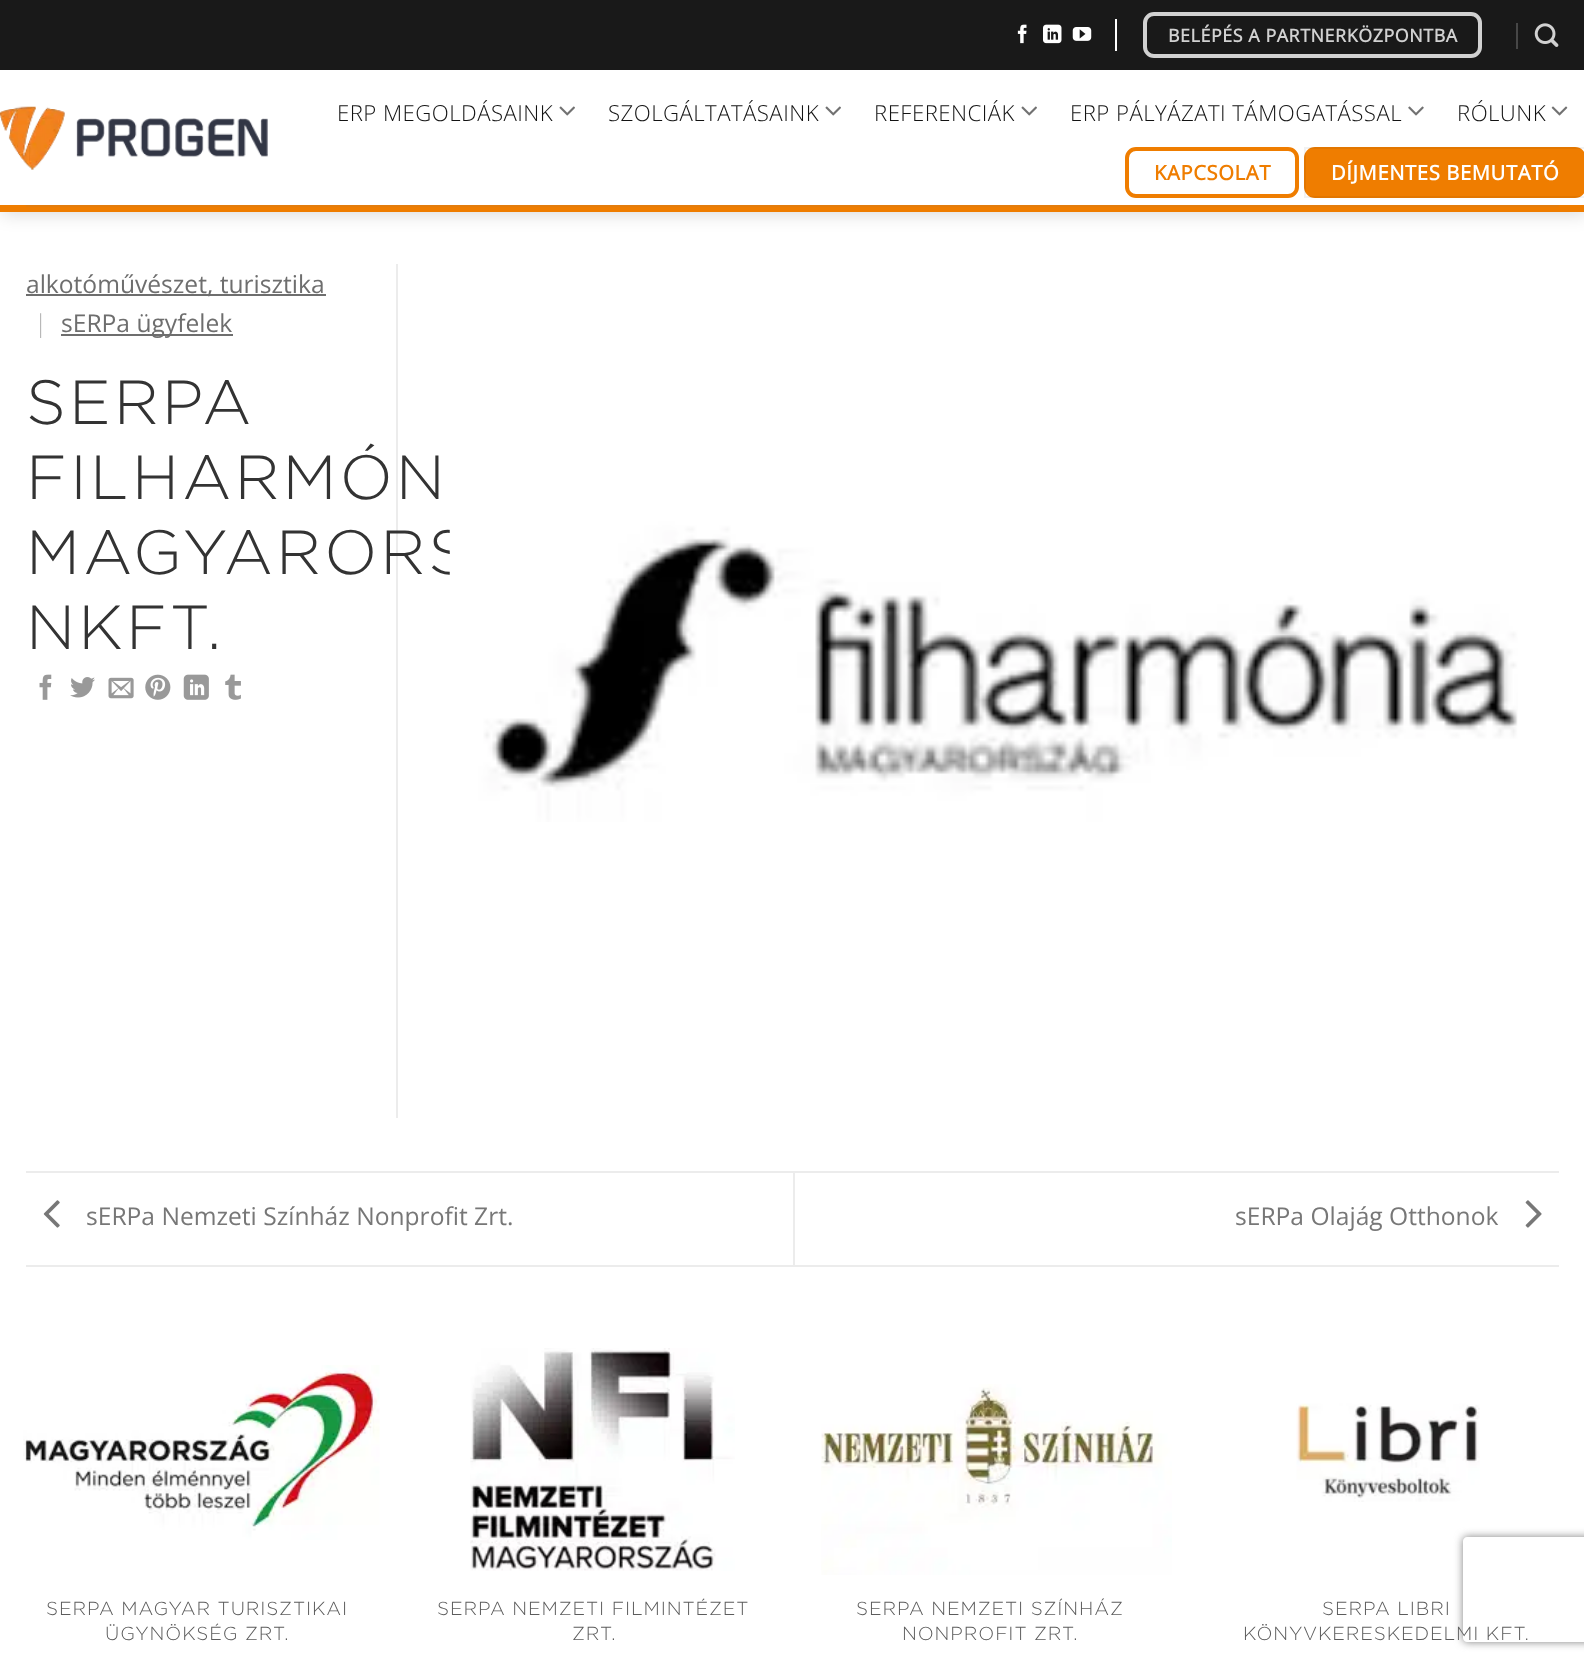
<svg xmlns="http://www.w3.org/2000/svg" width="1584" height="1666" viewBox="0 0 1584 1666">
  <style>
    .t1 { font: bold 17.9px Open Sans; letter-spacing: 0.55px; fill: #d1d1d1; }
    .t2 { font: 300 22.2px Open Sans; letter-spacing: 0.45px; fill: #131313; }
    .t3 { font: bold 20.25px Open Sans; letter-spacing: 0.6px; fill: #ef7d00; }
    .t4 { font: bold 20.25px Open Sans; letter-spacing: 0.6px; fill: #fff; }
    .t5 { font: 24.6px Open Sans; fill: #6e6e6e; }
    .t6 { font: 300 24.6px Open Sans; fill: #b2b2b2; }
    .t7 { font: 300 62.25px Gotham; letter-spacing: 3.1px; fill: #333; }
    .t8 { font: 24.6px Open Sans; fill: #777; }
    .t9 { font: 300 18.8px Gotham; letter-spacing: 0.9px; fill: #5c5c5c; }
  </style>
  <defs>
    <clipPath id="clip1"><path d="M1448 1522H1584V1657H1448ZM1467 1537H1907C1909 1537 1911 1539 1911 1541V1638C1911 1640 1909 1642 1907 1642H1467C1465 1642 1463 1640 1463 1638V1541C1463 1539 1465 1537 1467 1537Z" clip-rule="evenodd"/></clipPath>
  </defs>
  <rect width="100%" height="100%" fill="#fff"/>
  <rect x="2" y="2" width="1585" height="212" fill="#00000026" filter="blur(9px)"/>
  <rect x="0" y="0" width="1584" height="70" fill="#191919"/>
  <rect x="1115" y="19" width="2" height="32" fill="#fff"/>
  <image x="1017" y="24" width="10" height="20" href="images/1.png"/>
  <image x="1043" y="24" width="19" height="20" href="images/2.png"/>
  <image x="1072" y="27" width="20" height="14" href="images/3.png"/>
  <rect x="1145" y="14" width="335" height="42" rx="9" fill="none" stroke="#d1d1d1" stroke-width="4"/>
  <text x="1168" y="42" class="t1">BELÉPÉS A PARTNERKÖZPONTBA</text>
  <rect x="1516" y="23" width="2" height="26" fill="#474747"/>
  <image x="1534" y="23" width="25" height="24" href="images/4.png"/>
  <rect x="0" y="70" width="1584" height="135" fill="#fff"/>
  <rect x="0" y="205" width="1584" height="7" fill="#ef7d00"/>
  <image x="0" y="106" width="268" height="64" href="images/5.png"/>
  <text x="337" y="121" class="t2">ERP MEGOLDÁSAINK</text>
  <image x="559" y="106" width="16" height="10" href="images/6.png"/>
  <text x="608" y="121" class="t2">SZOLGÁLTATÁSAINK</text>
  <image x="825" y="106" width="16" height="10" href="images/6.png"/>
  <text x="874" y="121" class="t2">REFERENCIÁK</text>
  <image x="1021" y="106" width="16" height="10" href="images/6.png"/>
  <text x="1070" y="121" class="t2">ERP PÁLYÁZATI TÁMOGATÁSSAL</text>
  <image x="1408" y="106" width="16" height="10" href="images/7.png"/>
  <text x="1457" y="121" class="t2">RÓLUNK</text>
  <image x="1551" y="106" width="17" height="10" href="images/8.png"/>
  <rect x="1127" y="149" width="170" height="47" rx="9" fill="none" stroke="#ef7d00" stroke-width="4"/>
  <text x="1154" y="180" class="t3">KAPCSOLAT</text>
  <rect x="1304" y="147" width="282" height="51" rx="11" fill="#ef7d00"/>
  <rect x="1305" y="148" width="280" height="49" fill="none" stroke="#0000000d" stroke-width="2"/>
  <text x="1331" y="180" class="t4">DÍJMENTES BEMUTATÓ</text>
  <rect x="26" y="205" width="1533" height="2" fill="#e37c0c"/>
  <rect x="396" y="264" width="2" height="854" fill="#ececec"/>
  <rect x="26" y="294" width="300" height="2" fill="#6e6e6e"/>
  <text x="26" y="293" class="t5">alkotóművészet, turisztika</text>
  <text x="34" y="332" class="t6">|</text>
  <rect x="61" y="334" width="172" height="2" fill="#6e6e6e"/>
  <text x="61" y="332" class="t5">sERPa ügyfelek</text>
  <text x="26" y="424" class="t7">SERPA</text>
  <text x="26" y="499" class="t7">FILHARMÓN</text>
  <text x="26" y="574" class="t7">MAGYARORS</text>
  <text x="26" y="649" class="t7">NKFT.</text>
  <image x="39" y="674" width="13" height="26" href="images/9.png"/>
  <image x="70" y="677" width="25" height="21" href="images/10.png"/>
  <image x="108" y="677" width="26" height="22" href="images/11.png"/>
  <image x="145" y="674" width="26" height="26" href="images/12.png"/>
  <image x="183" y="674" width="26" height="26" href="images/13.png"/>
  <image x="225" y="674" width="16" height="26" href="images/14.png"/>
  <image x="449" y="455" width="1069" height="367" href="images/15.png"/>
  <rect x="26" y="1171" width="1533" height="2" fill="#ececec"/>
  <rect x="26" y="1265" width="1533" height="2" fill="#ececec"/>
  <image x="43" y="1200" width="17" height="28" href="images/16.png"/>
  <text x="86" y="1225" class="t8">sERPa Nemzeti Színház Nonprofit Zrt.</text>
  <rect x="793" y="1173" width="2" height="92" fill="#ececec"/>
  <text x="1235" y="1225" class="t8">sERPa Olajág Otthonok</text>
  <image x="1525" y="1200" width="17" height="28" href="images/17.png"/>
  <image x="23" y="1365" width="357" height="175" href="images/18.png"/>
  <text x="46" y="1615" class="t9">SERPA MAGYAR TURISZTIKAI</text>
  <text x="105" y="1640" class="t9">ÜGYNÖKSÉG ZRT.</text>
  <image x="470" y="1348" width="265" height="223" href="images/19.png"/>
  <text x="437" y="1615" class="t9">SERPA NEMZETI FILMINTÉZET</text>
  <text x="572" y="1640" class="t9">ZRT.</text>
  <image x="821" y="1384" width="351" height="191" href="images/20.png"/>
  <text x="856" y="1615" class="t9">SERPA NEMZETI SZÍNHÁZ</text>
  <text x="902" y="1640" class="t9">NONPROFIT ZRT.</text>
  <image x="1296" y="1403" width="184" height="99" href="images/21.png"/>
  <text x="1322" y="1615" class="t9">SERPA LIBRI</text>
  <text x="1243" y="1640" class="t9">KÖNYVKERESKEDELMI KFT.</text>
  <g clip-path="url(#clip1)">
    <rect x="1463" y="1537" width="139" height="105" rx="4" fill="#808080" filter="blur(4.5px)"/>
  </g>
</svg>
